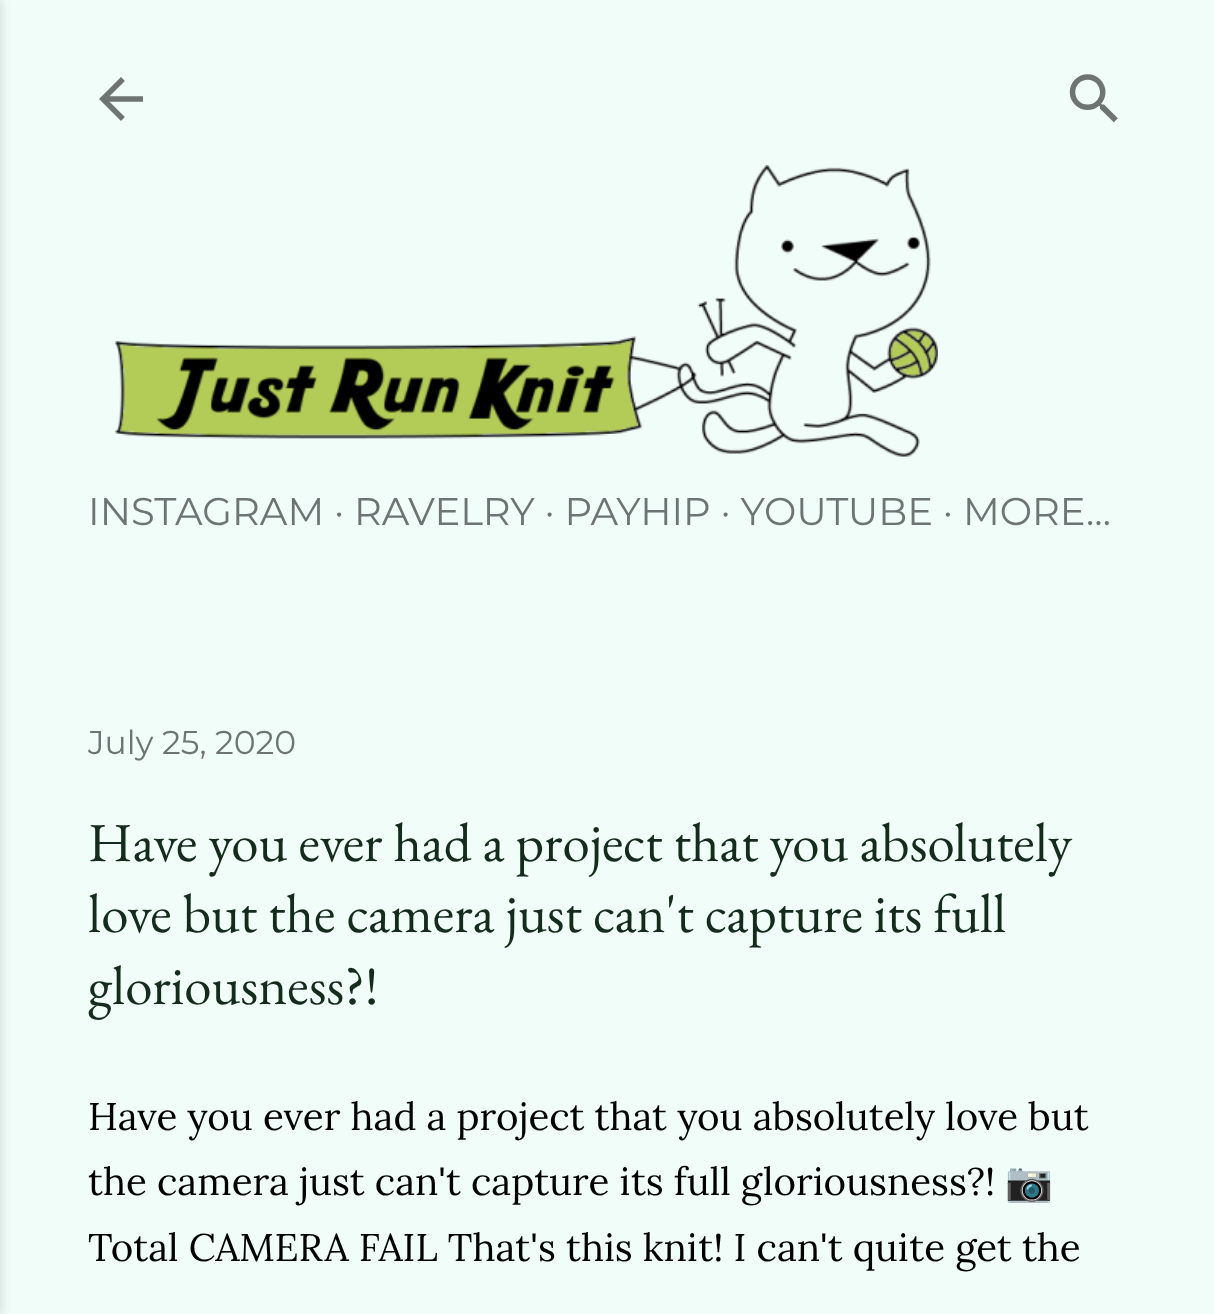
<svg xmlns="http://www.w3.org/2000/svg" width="1214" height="1314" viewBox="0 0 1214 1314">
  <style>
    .t1 { font: 38.5px Montserrat; fill: #6e7473; }
    .t2 { font: 33px Montserrat; fill: #6e7473; }
    .t3 { font: 55px EB Garamond; fill: #142c1c; }
    .t4 { font: 38.5px Lora; fill: #000; }
    .t5 { font: 38.5px Noto Color Emoji; fill: #000; }
  </style>
  <rect width="100%" height="100%" fill="#f0fdf9"/>
  <rect x="-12" y="0" width="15" height="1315" fill="#0000001a" filter="blur(4px)"/>
  <image x="99" y="77" width="44" height="44" href="images/1.png"/>
  <image x="1069" y="74" width="49" height="49" href="images/2.png"/>
  <image x="114" y="165" width="824" height="292" href="images/3.png"/>
  <text x="88" y="525" class="t1">INSTAGRAM · RAVELRY · PAYHIP · YOUTUBE · MORE…</text>
  <text x="88" y="754" class="t2">July 25, 2020</text>
  <text x="88" y="861" class="t3">Have you ever had a project that you absolutely</text>
  <text x="88" y="932" class="t3">love but the camera just can't capture its full</text>
  <text x="88" y="1004" class="t3">gloriousness?!</text>
  <text x="88" y="1130" class="t4">Have you ever had a project that you absolutely love but</text>
  <text x="88" y="1195" class="t4">the camera just can't capture its full gloriousness?!</text>
  <text x="1005" y="1195" class="t5">📷</text>
  <text x="88" y="1261" class="t4">Total CAMERA FAIL That's this knit! I can't quite get the</text>
</svg>
